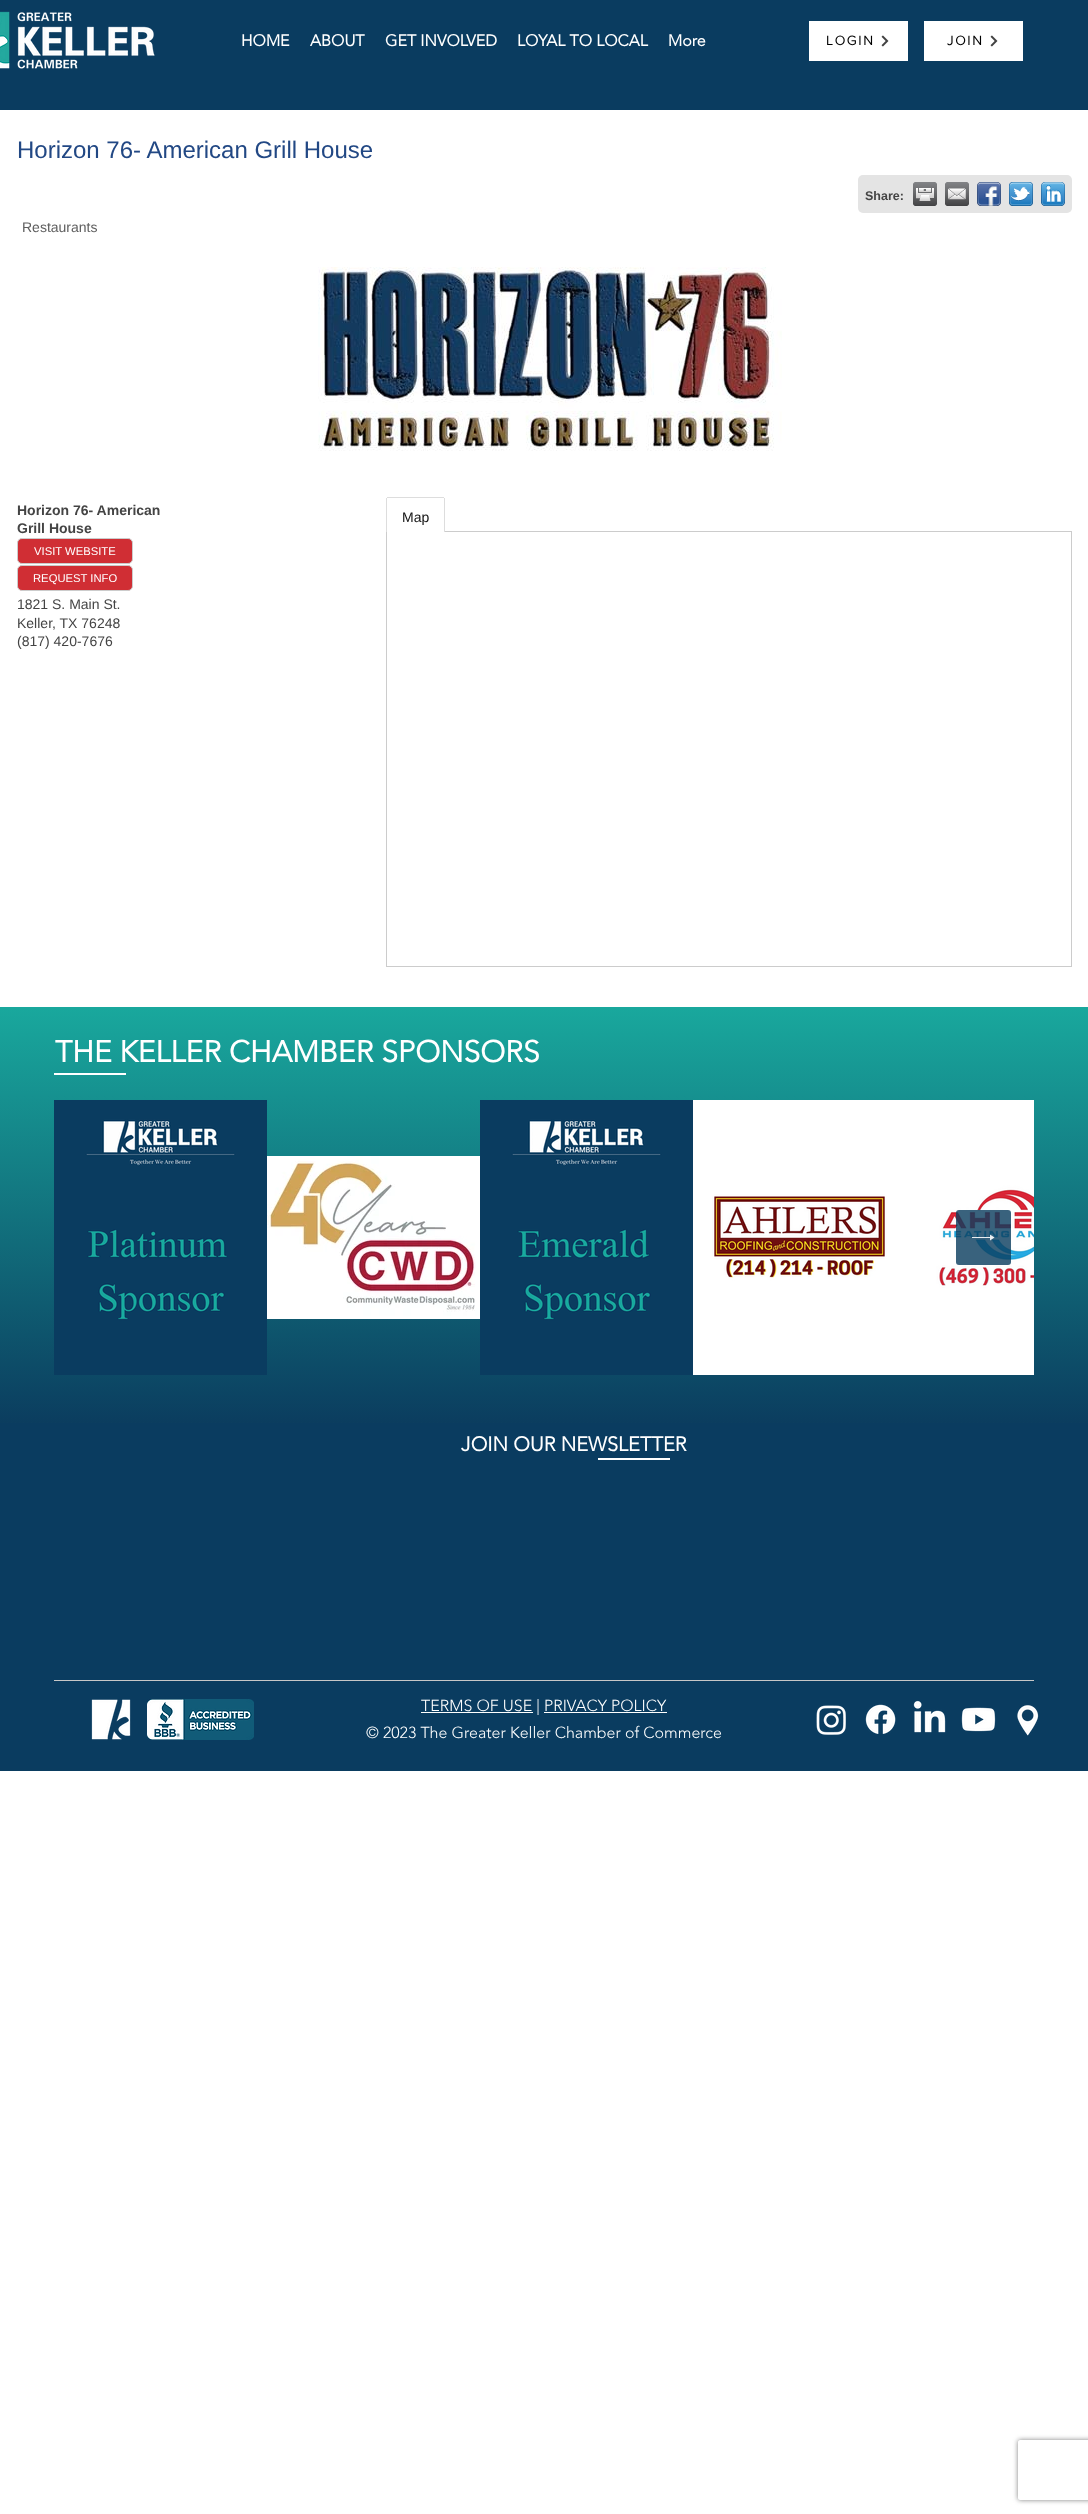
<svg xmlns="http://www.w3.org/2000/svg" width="1088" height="2514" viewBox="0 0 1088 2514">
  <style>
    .t1 { font: bold 16px 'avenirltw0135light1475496'; fill: #fff; }
    .t2 { font: 14px 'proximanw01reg'; letter-spacing: 1.5px; fill: #000; }
    .t3 { font: 24px Liberation Sans; fill: #224884; }
    .t4 { font: bold 12.5px Liberation Sans; fill: #444; }
    .t5 { font: 14px Liberation Sans; fill: #5e5e5e; }
    .t6 { font: bold 14px Liberation Sans; fill: #444; }
    .t7 { font: 11.25px Liberation Sans; fill: #fff; }
    .t8 { font: 14px Liberation Sans; fill: #444; }
    .t9 { font: 14px Liberation Sans; fill: #111; }
    .t10 { font: bold 30px 'avenirltw0135light1475496'; fill: #fff; }
    .t11 { font: bold 20px 'avenirltw0135light1475496'; fill: #fff; }
    .t12 { font: 300 16px 'avenirltw0135light1475496'; fill: #fff; }
  </style>
  <defs>
    <linearGradient id="g1" gradientUnits="userSpaceOnUse" x1="544" y1="1007" x2="544" y2="1423"><stop offset="0" stop-color="#19a89d"/><stop offset="1" stop-color="#0b3d5f"/></linearGradient>
    <clipPath id="clip1"><path d="M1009 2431H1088V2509H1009ZM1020 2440H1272C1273 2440 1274 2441 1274 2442V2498C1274 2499 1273 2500 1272 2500H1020C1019 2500 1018 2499 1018 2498V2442C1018 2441 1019 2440 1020 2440Z" clip-rule="evenodd"/></clipPath>
  </defs>
  <rect width="100%" height="100%" fill="#fff"/>
  <rect x="0" y="0" width="1088" height="110" fill="#0a3c60"/>
  <image x="0" y="11" width="155" height="58" href="images/1.png"/>
  <text x="241" y="46" class="t1">HOME</text>
  <text x="310" y="46" class="t1">ABOUT</text>
  <text x="385" y="46" class="t1">GET INVOLVED</text>
  <text x="517" y="46" class="t1">LOYAL TO LOCAL</text>
  <text x="668" y="46" class="t1">More</text>
  <rect x="809" y="21" width="99" height="40" fill="#fff"/>
  <text x="826" y="45" class="t2">LOGIN</text>
  <image x="881" y="35" width="8" height="12" href="images/2.png"/>
  <rect x="924" y="21" width="99" height="40" fill="#fff"/>
  <text x="947" y="45" class="t2">JOIN</text>
  <image x="990" y="35" width="8" height="12" href="images/2.png"/>
  <text x="17" y="158" class="t3">Horizon 76- American Grill House</text>
  <rect x="858" y="175" width="214" height="38" rx="5" fill="#e4e4e4"/>
  <text x="865" y="200" class="t4">Share:</text>
  <image x="913" y="182" width="24" height="24" href="images/3.png"/>
  <image x="945" y="182" width="24" height="24" href="images/4.png"/>
  <image x="977" y="182" width="24" height="24" href="images/5.png"/>
  <image x="1009" y="182" width="24" height="24" href="images/6.png"/>
  <image x="1041" y="182" width="24" height="24" href="images/7.png"/>
  <text x="22" y="232" class="t5">Restaurants</text>
  <image x="318" y="267" width="464" height="184" href="images/8.png"/>
  <text x="17" y="515" class="t6">Horizon 76- American</text>
  <text x="17" y="533" class="t6">Grill House</text>
  <rect x="17.5" y="538.5" width="115" height="25" rx="4.5" fill="#d02e34" stroke="#ccc"/>
  <text x="34" y="555" class="t7">VISIT WEBSITE</text>
  <rect x="17.5" y="565.5" width="115" height="25" rx="4.5" fill="#d02e34" stroke="#ccc"/>
  <text x="33" y="582" class="t7">REQUEST INFO</text>
  <text x="17" y="609" class="t8">1821 S. Main St.</text>
  <text x="17" y="628" class="t8">Keller</text>
  <text x="52" y="628" class="t8">, TX 76248</text>
  <text x="17" y="646" class="t8">(817) 420-7676</text>
  <rect x="386.5" y="531.5" width="685" height="435" fill="none" stroke="#ccc"/>
  <path d="M388 498H443C443.5 498 444 498.5 444 499V532H387V499C387 498.5 387.5 498 388 498Z" fill="#fff"/>
  <rect x="387" y="497" width="57" height="1" fill="#ddd"/>
  <rect x="444" y="498" width="1" height="34" fill="#ddd"/>
  <rect x="386" y="498" width="1" height="34" fill="#ddd"/>
  <text x="402" y="522" class="t9">Map</text>
  <rect x="0" y="1007" width="1088" height="416" fill="url(#g1)"/>
  <text x="55" y="1062" class="t10">THE KELLER CHAMBER SPONSORS</text>
  <rect x="54" y="1073" width="72" height="2" fill="#fff"/>
  <image x="54" y="1100" width="213" height="275" href="images/9.png"/>
  <image x="267" y="1156" width="213" height="163" href="images/10.png"/>
  <image x="480" y="1100" width="213" height="275" href="images/11.png"/>
  <image x="693" y="1100" width="213" height="275" href="images/12.png"/>
  <image x="906" y="1100" width="128" height="275" href="images/13.png"/>
  <rect x="956" y="1210" width="55" height="55" rx="3" fill="#0b3d5fcf"/>
  <path d="M990 1234.5L994.5 1237.5L990 1240.5V1238H972V1237H990Z" fill="#ffffffe6"/>
  <rect x="0" y="1423" width="1088" height="348" fill="#0a3c60"/>
  <text x="461" y="1451" class="t11">JOIN OUR NEWSLETTER</text>
  <rect x="598" y="1458" width="72" height="2" fill="#fff"/>
  <rect x="54" y="1680" width="980" height="1" fill="#c7c7c7"/>
  <image x="91" y="1699" width="40" height="41" href="images/14.png"/>
  <image x="147" y="1699" width="107" height="41" href="images/15.png"/>
  <rect x="421" y="1712" width="112" height="1" fill="#fff"/>
  <text x="421" y="1711" class="t12">TERMS OF USE | PRIVACY POLICY</text>
  <rect x="544" y="1712" width="123" height="1" fill="#fff"/>
  <text x="366" y="1738" class="t12">© 2023 The Greater Keller Chamber of Commerce</text>
  <image x="816" y="1705" width="30" height="30" href="images/16.png"/>
  <image x="865" y="1704" width="31" height="30" href="images/17.png"/>
  <image x="913" y="1700" width="33" height="33" href="images/18.png"/>
  <image x="961" y="1707" width="35" height="25" href="images/19.png"/>
  <image x="1017" y="1705" width="22" height="31" href="images/20.png"/>
  <g clip-path="url(#clip1)">
    <rect x="1018" y="2440" width="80" height="60" rx="2" fill="#808080" filter="blur(2.5px)"/>
  </g>
</svg>
